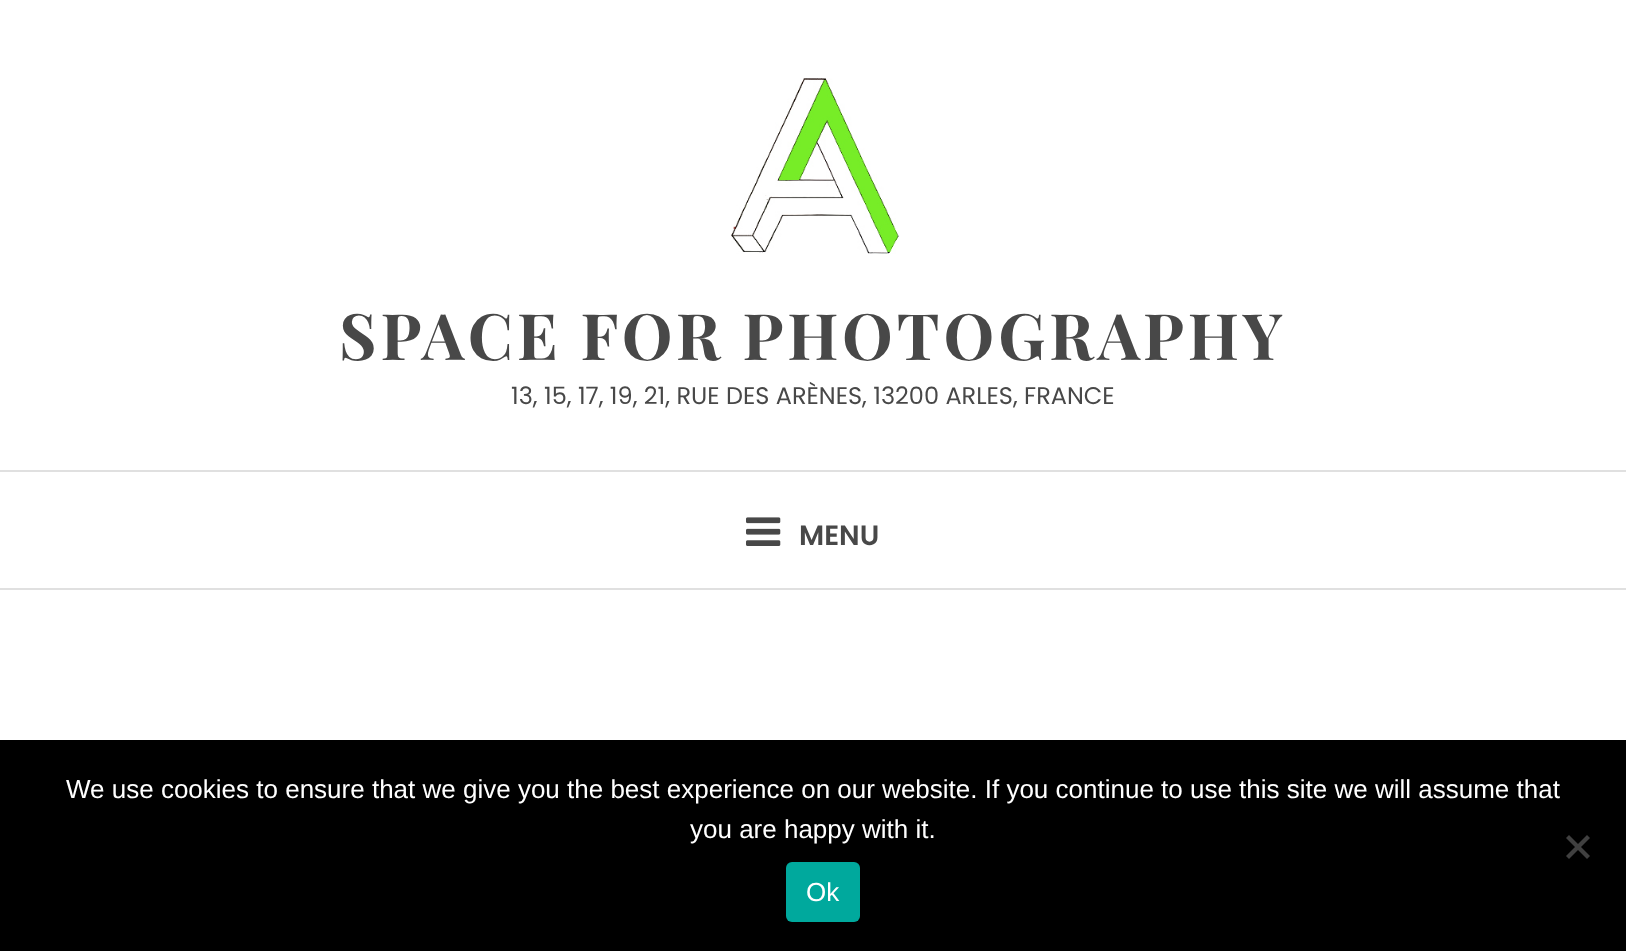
<svg xmlns="http://www.w3.org/2000/svg" width="1626" height="951" viewBox="0 0 1626 951">
  <style>
    .t1 { font: bold 64px Playfair Display; letter-spacing: 4px; fill: #484848; }
    .t2 { font: 24px Poppins; fill: #484848; }
    .t3 { font: 600 28px Poppins; fill: #484848; }
    .t4 { font: 26px Liberation Sans; fill: #fff; }
  </style>
  <rect width="100%" height="100%" fill="#fff"/>
  <rect x="0" y="470" width="1626" height="2" fill="#e0e0e0"/>
  <image x="731" y="78" width="168" height="176" href="images/1.png"/>
  <text x="339" y="360" class="t1">SPACE FOR PHOTOGRAPHY</text>
  <text x="511" y="404" class="t2">13, 15, 17, 19, 21, RUE DES ARÈNES, 13200 ARLES, FRANCE</text>
  <rect x="0" y="588" width="1626" height="2" fill="#e0e0e0"/>
  <image x="746" y="517" width="35" height="29" href="images/2.png"/>
  <text x="799" y="545" class="t3">MENU</text>
  <rect x="0" y="740" width="1626" height="211" fill="#000"/>
  <text x="66" y="798" class="t4">We use cookies to ensure that we give you the best experience on our website. If you continue to use this site we will assume that</text>
  <text x="690" y="838" class="t4">you are happy with it.</text>
  <path d="M1587 835L1590 838L1569 859L1566 856Z" fill="#404040"/>
  <path d="M1566 838L1569 835L1590 856L1587 859Z" fill="#404040"/>
  <rect x="786" y="862" width="74" height="60" rx="6" fill="#00a99d"/>
  <text x="806" y="901" class="t4">Ok</text>
</svg>
